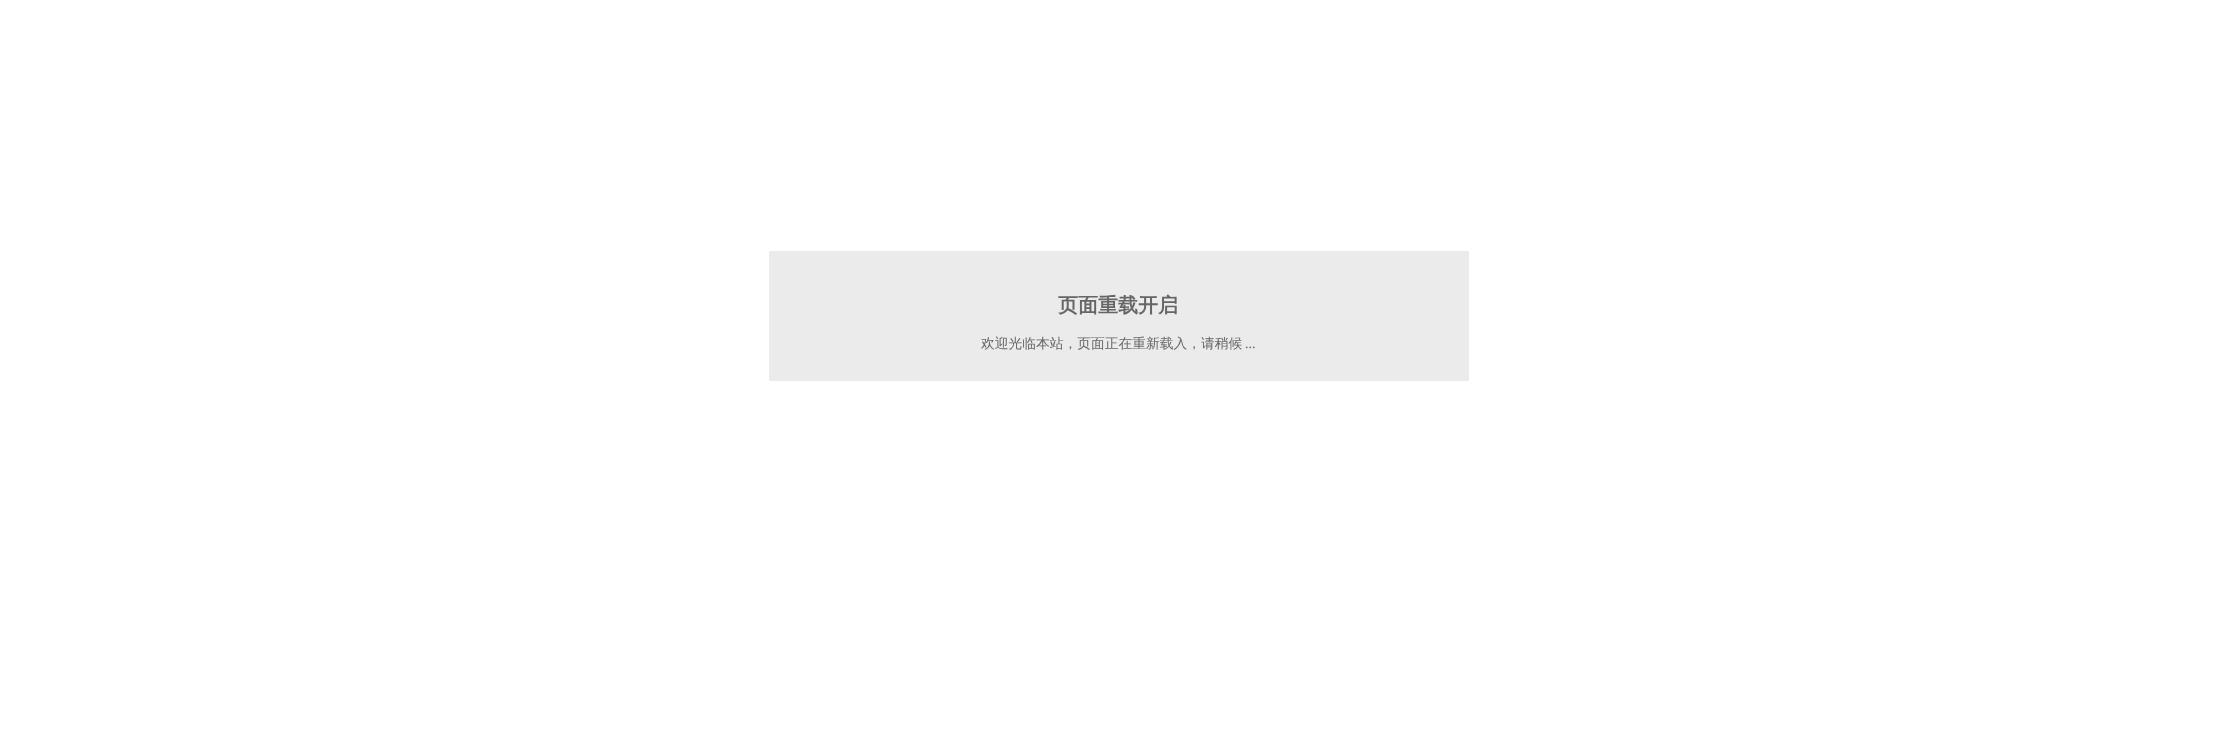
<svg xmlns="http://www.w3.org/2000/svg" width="2236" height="740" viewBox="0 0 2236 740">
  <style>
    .t1 { font: bold 20px WenQuanYi Zen Hei; fill: #666; }
    .t2 { font: 500 13.75px WenQuanYi Zen Hei; fill: #666; }
    .t3 { font: 13.75px Liberation Serif; fill: #666; }
  </style>
  <rect width="100%" height="100%" fill="#fff"/>
  <rect x="769" y="251" width="700" height="130" fill="#ebebeb"/>
  <text x="1058" y="312" class="t1">页面重载开启</text>
  <text x="981" y="348" class="t2">欢迎光临本站，页面正在重新载入，请稍候</text>
  <text x="1245" y="348" class="t3">...</text>
</svg>
